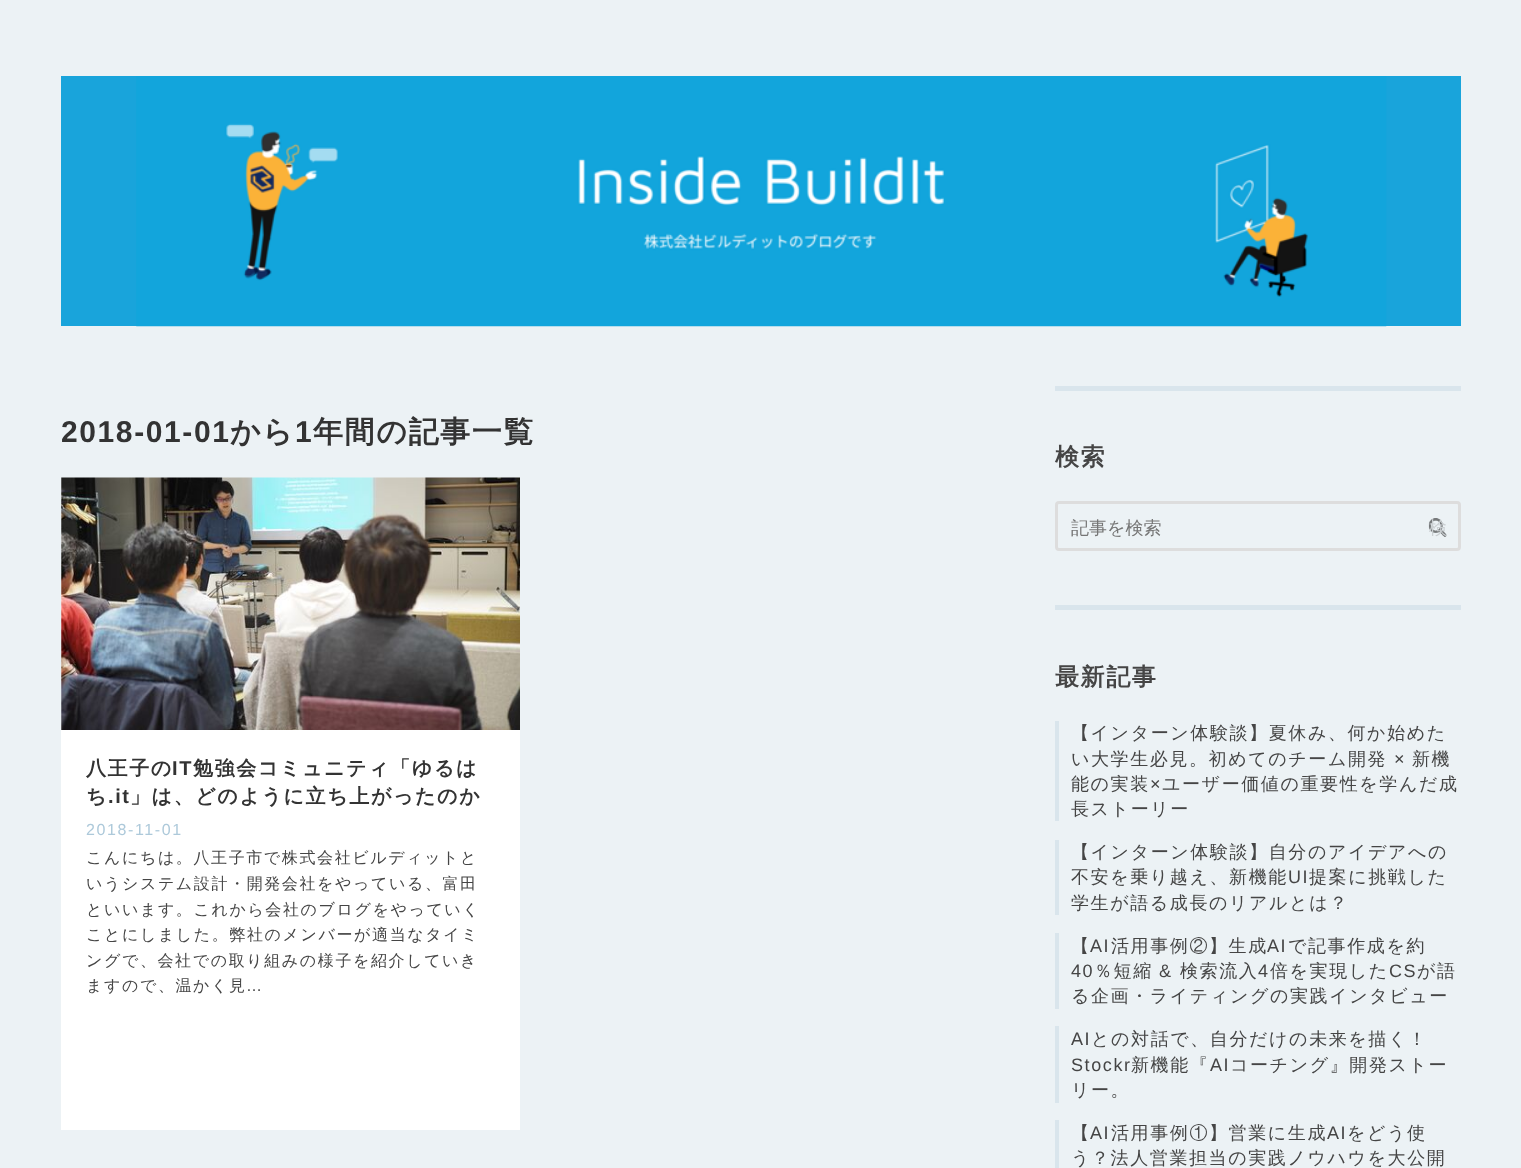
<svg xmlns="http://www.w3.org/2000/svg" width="1521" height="1168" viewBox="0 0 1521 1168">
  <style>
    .t1 { font: bold 30px Liberation Sans; letter-spacing: 1.6px; fill: #333; }
    .t2 { font: bold 30px WenQuanYi Zen Hei; letter-spacing: 1.6px; fill: #333; }
    .t3 { font: bold 20px WenQuanYi Zen Hei; letter-spacing: 1.6px; fill: #333; }
    .t4 { font: bold 20px Liberation Sans; letter-spacing: 1.6px; fill: #333; }
    .t5 { font: 16px Liberation Sans; letter-spacing: 1.6px; fill: #adc9da; }
    .t6 { font: 500 16px WenQuanYi Zen Hei; letter-spacing: 1.6px; fill: #454545; }
    .t7 { font: 16px Liberation Sans; letter-spacing: 1.6px; fill: #454545; }
    .t8 { font: bold 24px WenQuanYi Zen Hei; letter-spacing: 1.6px; fill: #454545; }
    .t9 { font: 500 18px WenQuanYi Zen Hei; fill: #757575; }
    .t10 { font: 500 18px WenQuanYi Zen Hei; fill: #cacfd2; }
    .t11 { font: 500 18px WenQuanYi Zen Hei; letter-spacing: 1.6px; fill: #454545; }
    .t12 { font: 18px Liberation Sans; letter-spacing: 1.6px; fill: #454545; }
  </style>
  <rect width="100%" height="100%" fill="#ecf2f5"/>
  <rect x="61" y="76" width="1400" height="250" fill="#19a4db"/>
  <image x="136" y="76" width="1251" height="251" href="images/1.png"/>
  <text x="61" y="442" class="t1">2018-01-01</text>
  <text x="230" y="442" class="t2">から</text>
  <text x="295" y="442" class="t1">1</text>
  <text x="313" y="442" class="t2">年間の記事一覧</text>
  <rect x="61" y="478" width="459" height="652" fill="#fff"/>
  <image x="61" y="477" width="459" height="253" href="images/2.png"/>
  <text x="86" y="775" class="t3">八王子の</text>
  <text x="172" y="775" class="t4">IT</text>
  <text x="193" y="775" class="t3">勉強会コミュニティ「ゆるは</text>
  <text x="86" y="803" class="t3">ち</text>
  <text x="108" y="803" class="t4">.it</text>
  <text x="130" y="803" class="t3">」は、どのように立ち上がったのか</text>
  <text x="86" y="835" class="t5">2018-11-01</text>
  <text x="86" y="863" class="t6">こんにちは。八王子市で株式会社ビルディットと</text>
  <text x="86" y="889" class="t6">いうシステム設計・開発会社をやっている、富田</text>
  <text x="86" y="915" class="t6">といいます。これから会社のブログをやっていく</text>
  <text x="86" y="940" class="t6">ことにしました。弊社のメンバーが適当なタイミ</text>
  <text x="86" y="966" class="t6">ングで、会社での取り組みの様子を紹介していき</text>
  <text x="86" y="991" class="t6">ますので、温かく見</text>
  <text x="246" y="991" class="t7">…</text>
  <rect x="1055" y="386" width="406" height="5" fill="#d9e5ec"/>
  <text x="1055" y="465" class="t8">検索</text>
  <rect x="1056.5" y="502.5" width="403" height="47" rx="2.5" fill="none" stroke="#ddd" stroke-width="3"/>
  <text x="1071" y="534" class="t9">記事を検索</text>
  <image x="1428" y="518" width="19" height="19" href="images/3.png"/>
  <text x="1429" y="534" class="t10">検</text>
  <rect x="1055" y="605" width="406" height="5" fill="#d9e5ec"/>
  <text x="1055" y="685" class="t8">最新記事</text>
  <rect x="1055" y="721" width="4" height="100" fill="#d9e5ec"/>
  <text x="1071" y="739" class="t11">【インターン体験談】夏休み、何か始めた</text>
  <text x="1071" y="765" class="t11">い大学生必見。初めてのチーム開発</text>
  <text x="1394" y="765" class="t12">×</text>
  <text x="1412" y="765" class="t11">新機</text>
  <text x="1071" y="790" class="t11">能の実装</text>
  <text x="1150" y="790" class="t12">×</text>
  <text x="1162" y="790" class="t11">ユーザー価値の重要性を学んだ成</text>
  <text x="1071" y="815" class="t11">長ストーリー</text>
  <rect x="1055" y="840" width="4" height="75" fill="#d9e5ec"/>
  <text x="1071" y="858" class="t11">【インターン体験談】自分のアイデアへの</text>
  <text x="1071" y="883" class="t11">不安を乗り越え、新機能</text>
  <text x="1288" y="883" class="t12">UI</text>
  <text x="1309" y="883" class="t11">提案に挑戦した</text>
  <text x="1071" y="909" class="t11">学生が語る成長のリアルとは？</text>
  <rect x="1055" y="933" width="4" height="76" fill="#d9e5ec"/>
  <text x="1071" y="952" class="t11">【</text>
  <text x="1090" y="952" class="t12">AI</text>
  <text x="1111" y="952" class="t11">活用事例②】生成</text>
  <text x="1267" y="952" class="t12">AI</text>
  <text x="1288" y="952" class="t11">で記事作成を約</text>
  <text x="1071" y="977" class="t12">40</text>
  <text x="1094" y="977" class="t11">％短縮</text>
  <text x="1159" y="977" class="t12">&amp;</text>
  <text x="1180" y="977" class="t11">検索流入</text>
  <text x="1258" y="977" class="t12">4</text>
  <text x="1270" y="977" class="t11">倍を実現した</text>
  <text x="1389" y="977" class="t12">CS</text>
  <text x="1417" y="977" class="t11">が語</text>
  <text x="1071" y="1002" class="t11">る企画・ライティングの実践インタビュー</text>
  <rect x="1055" y="1026" width="4" height="77" fill="#d9e5ec"/>
  <text x="1071" y="1045" class="t12">AI</text>
  <text x="1091" y="1045" class="t11">との対話で、自分だけの未来を描く！</text>
  <text x="1071" y="1071" class="t12">Stockr</text>
  <text x="1131" y="1071" class="t11">新機能『</text>
  <text x="1210" y="1071" class="t12">AI</text>
  <text x="1230" y="1071" class="t11">コーチング』開発ストー</text>
  <text x="1071" y="1096" class="t11">リー。</text>
  <rect x="1055" y="1120" width="4" height="48" fill="#d9e5ec"/>
  <text x="1071" y="1139" class="t11">【</text>
  <text x="1090" y="1139" class="t12">AI</text>
  <text x="1111" y="1139" class="t11">活用事例①】営業に生成</text>
  <text x="1327" y="1139" class="t12">AI</text>
  <text x="1347" y="1139" class="t11">をどう使</text>
  <text x="1071" y="1164" class="t11">う？法人営業担当の実践ノウハウを大公開</text>
</svg>
